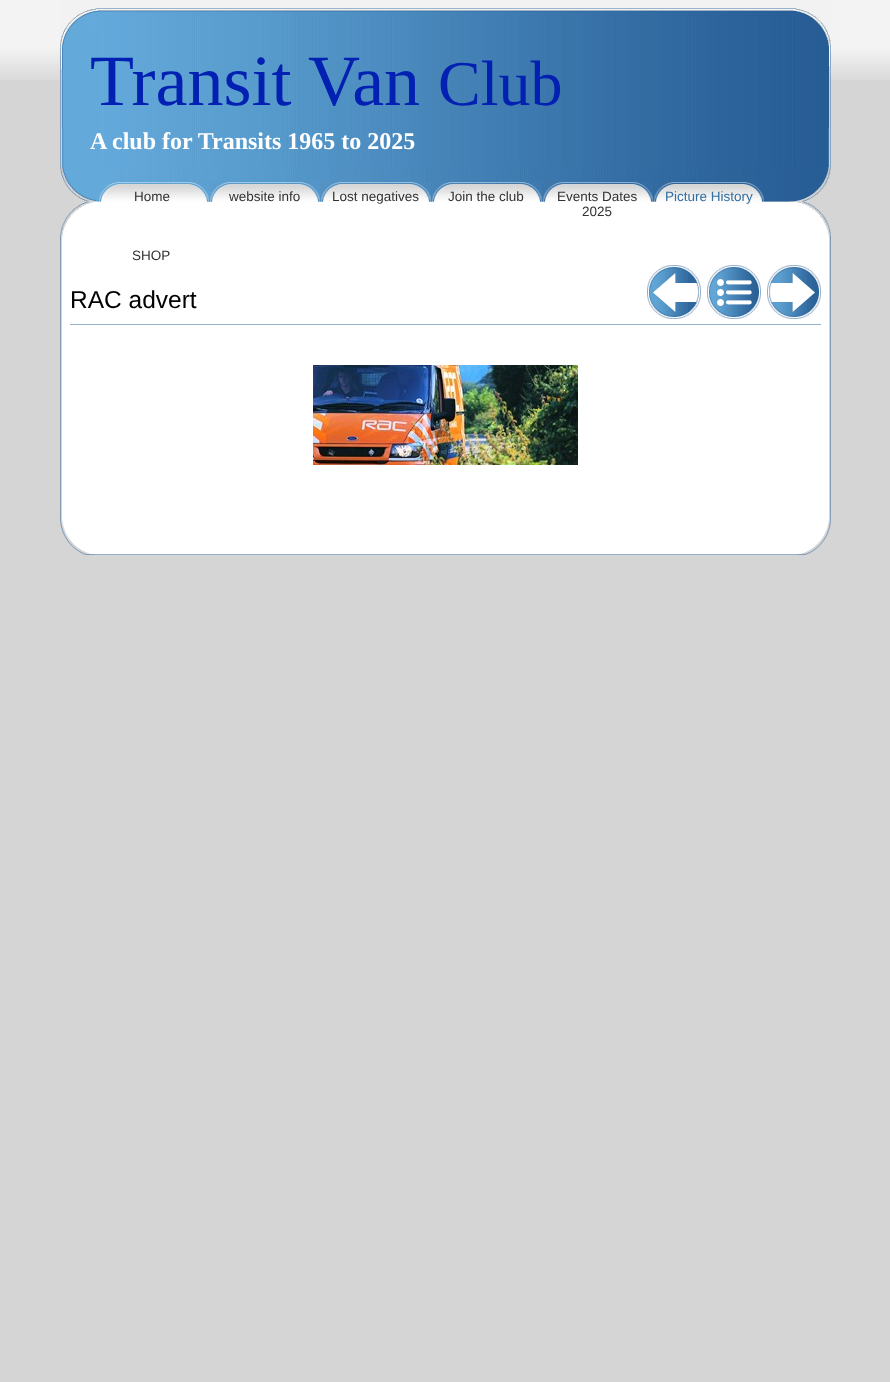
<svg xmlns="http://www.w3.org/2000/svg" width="890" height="1382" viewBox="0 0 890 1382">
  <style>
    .t1 { font: 72px Liberation Serif; fill: #0220b1; }
    .t2 { font: 64px Liberation Serif; fill: #0220b1; }
    .t3 { font: bold 24px Liberation Serif; fill: #fff; }
    .t4 { font: 13.5px Liberation Sans; fill: #323232; }
    .t5 { font: 13.5px Liberation Sans; fill: #326ea0; }
    .t6 { font: 24.5px Liberation Sans; fill: #000; }
  </style>
  <rect width="100%" height="100%" fill="#d5d5d5"/>
  <image x="0" y="0" width="890" height="80" href="images/1.png"/>
  <image x="60" y="240" width="771" height="266" href="images/2.png"/>
  <image x="60" y="0" width="771" height="167" href="images/3.png"/>
  <text x="90" y="105" class="t1">Transit Van</text>
  <text x="438" y="105" class="t2">Club</text>
  <text x="90" y="149" class="t3">A club for Transits 1965 to 2025</text>
  <image x="60" y="167" width="771" height="73" href="images/4.png"/>
  <image x="96" y="182" width="113" height="21" href="images/5.png"/>
  <text x="134" y="201" class="t4">Home</text>
  <image x="209" y="182" width="111" height="20" href="images/6.png"/>
  <text x="229" y="201" class="t4">website info</text>
  <image x="320" y="182" width="111" height="20" href="images/7.png"/>
  <text x="332" y="201" class="t4">Lost negatives</text>
  <image x="431" y="182" width="111" height="20" href="images/8.png"/>
  <text x="448" y="201" class="t4">Join the club</text>
  <image x="542" y="182" width="111" height="20" href="images/9.png"/>
  <text x="557" y="201" class="t4">Events Dates</text>
  <text x="582" y="216" class="t4">2025</text>
  <image x="653" y="182" width="111" height="20" href="images/10.png"/>
  <text x="665" y="201" class="t5">Picture History</text>
  <text x="132" y="260" class="t4">SHOP</text>
  <rect x="70" y="324" width="751" height="1" fill="#98b1cb"/>
  <text x="70" y="308" class="t6">RAC advert</text>
  <image x="647" y="265" width="54" height="54" href="images/11.png"/>
  <image x="707" y="265" width="54" height="54" href="images/12.png"/>
  <image x="767" y="265" width="54" height="54" href="images/13.png"/>
  <image x="313" y="365" width="265" height="100" href="images/14.png"/>
  <image x="60" y="506" width="771" height="49" href="images/15.png"/>
</svg>
